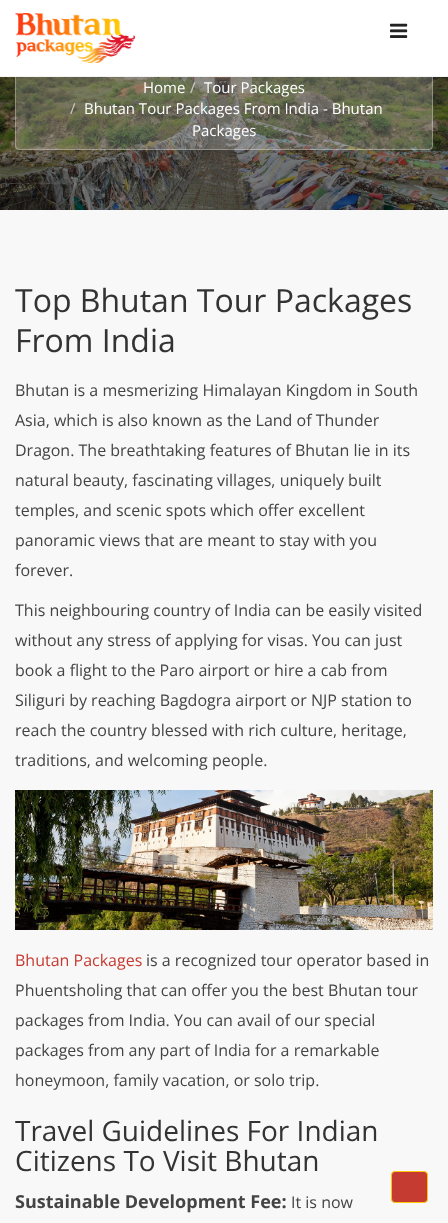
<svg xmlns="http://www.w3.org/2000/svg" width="448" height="1223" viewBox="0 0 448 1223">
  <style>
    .t1 { font: 15px Open Sans; fill: #fff; }
    .t2 { font: 15px Open Sans; fill: #ccc; }
    .t3 { font: 32px Open Sans; fill: #333; }
    .t4 { font: 16px Open Sans; fill: #444; }
    .t5 { font: 16px Open Sans; fill: #c63b31; }
    .t6 { font: 28px Open Sans; fill: #333; }
    .t7 { font: bold 18px Open Sans; fill: #444; }
  </style>
  <rect width="100%" height="100%" fill="#f8f8f8"/>
  <image x="0" y="77" width="448" height="133" href="images/3.png"/>
  <rect x="15" y="68" width="418" height="82" rx="4" fill="#ffffff33"/>
  <rect x="15.5" y="68.5" width="417" height="81" rx="3.5" fill="none" stroke="#ffffff4d"/>
  <rect x="0" y="0" width="448" height="76" fill="#fff"/>
  <rect x="0" y="76" width="448" height="1" fill="#f4f4f4"/>
  <image x="15" y="13" width="120" height="50" href="images/1.png"/>
  <image x="390" y="23" width="18" height="15" href="images/2.png"/>
  <text x="143" y="93" class="t1">Home</text>
  <text x="190" y="93" class="t2">/</text>
  <text x="204" y="93" class="t1">Tour Packages</text>
  <text x="70" y="114" class="t2">/</text>
  <text x="84" y="114" class="t1">Bhutan Tour Packages From India - Bhutan</text>
  <text x="192" y="136" class="t1">Packages</text>
  <text x="15" y="312" class="t3">Top Bhutan Tour Packages</text>
  <text x="15" y="352" class="t3">From India</text>
  <text x="15" y="396" class="t4">Bhutan is a mesmerizing Himalayan Kingdom in South</text>
  <text x="15" y="426" class="t4">Asia, which is also known as the Land of Thunder</text>
  <text x="15" y="456" class="t4">Dragon. The breathtaking features of Bhutan lie in its</text>
  <text x="15" y="486" class="t4">natural beauty, fascinating villages, uniquely built</text>
  <text x="15" y="516" class="t4">temples, and scenic spots which offer excellent</text>
  <text x="15" y="546" class="t4">panoramic views that are meant to stay with you</text>
  <text x="15" y="576" class="t4">forever.</text>
  <text x="15" y="616" class="t4">This neighbouring country of India can be easily visited</text>
  <text x="15" y="646" class="t4">without any stress of applying for visas. You can just</text>
  <text x="15" y="676" class="t4">book a flight to the Paro airport or hire a cab from</text>
  <text x="15" y="706" class="t4">Siliguri by reaching Bagdogra airport or NJP station to</text>
  <text x="15" y="736" class="t4">reach the country blessed with rich culture, heritage,</text>
  <text x="15" y="766" class="t4">traditions, and welcoming people.</text>
  <image x="15" y="790" width="418" height="140" href="images/4.png"/>
  <text x="15" y="966" class="t5">Bhutan Packages</text>
  <text x="146" y="966" class="t4">is a recognized tour operator based in</text>
  <text x="15" y="996" class="t4">Phuentsholing that can offer you the best Bhutan tour</text>
  <text x="15" y="1026" class="t4">packages from India. You can avail of our special</text>
  <text x="15" y="1056" class="t4">packages from any part of India for a remarkable</text>
  <text x="15" y="1086" class="t4">honeymoon, family vacation, or solo trip.</text>
  <text x="15" y="1141" class="t6">Travel Guidelines For Indian</text>
  <text x="15" y="1171" class="t6">Citizens To Visit Bhutan</text>
  <text x="15" y="1208" class="t7">Sustainable Development Fee:</text>
  <text x="291" y="1208" class="t4">It is now</text>
  <rect x="391.5" y="1171.5" width="36" height="31" rx="3.5" fill="#c63b31" stroke="#ffc707"/>
</svg>
